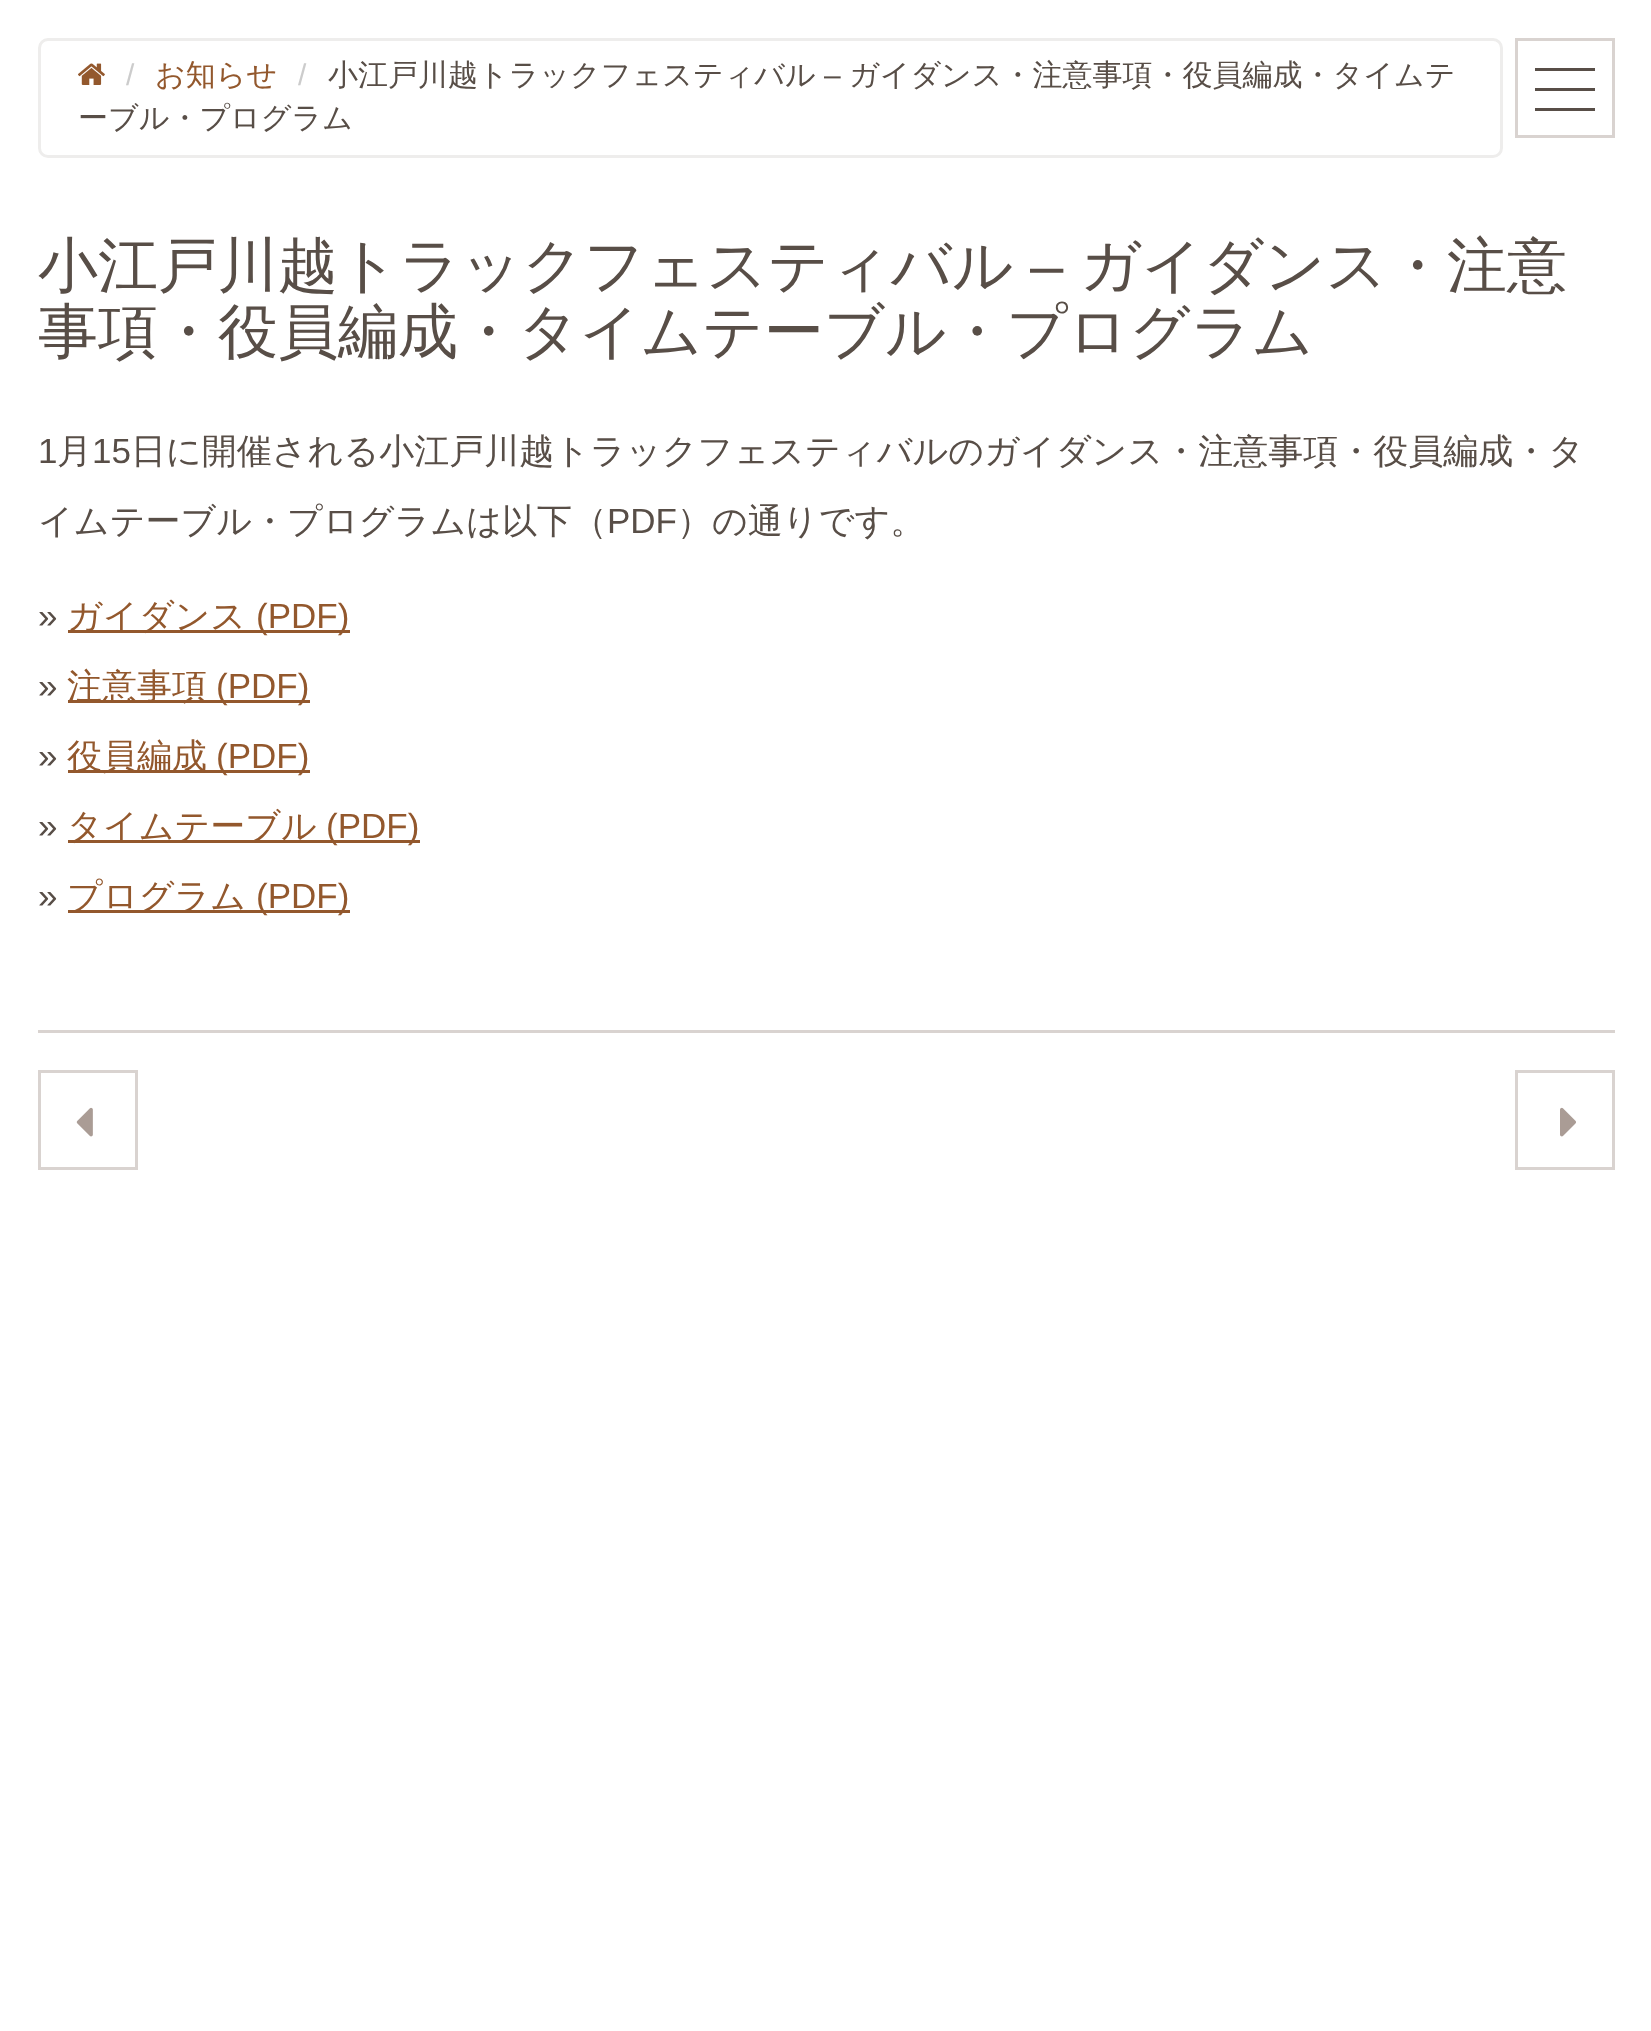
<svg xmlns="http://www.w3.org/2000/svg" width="1651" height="2031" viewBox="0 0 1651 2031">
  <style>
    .t1 { font: 30px Liberation Sans; fill: #ccc; }
    .t2 { font: 500 30px WenQuanYi Zen Hei; fill: #93582d; }
    .t3 { font: 500 30px WenQuanYi Zen Hei; fill: #584e47; }
    .t4 { font: 30px Liberation Sans; fill: #584e47; }
    .t5 { font: 500 60px WenQuanYi Zen Hei; fill: #584e47; }
    .t6 { font: 60px Liberation Sans; fill: #584e47; }
    .t7 { font: 35px Liberation Sans; fill: #584e47; }
    .t8 { font: 500 35px WenQuanYi Zen Hei; fill: #584e47; }
    .t9 { font: 500 35px WenQuanYi Zen Hei; fill: #93582d; }
    .t10 { font: 35px Liberation Sans; fill: #93582d; }
  </style>
  <rect width="100%" height="100%" fill="#fff"/>
  <rect x="39.5" y="39.5" width="1462" height="117" rx="8.5" fill="none" stroke="#eeedec" stroke-width="3"/>
  <image x="78" y="63" width="27" height="22" href="images/1.png"/>
  <text x="126" y="85" class="t1">/</text>
  <text x="155" y="85" class="t2">お知らせ</text>
  <text x="298" y="85" class="t1">/</text>
  <text x="328" y="85" class="t3">小江戸川越トラックフェスティバル</text>
  <text x="824" y="85" class="t4">–</text>
  <text x="849" y="85" class="t3">ガイダンス・注意事項・役員編成・タイムテ</text>
  <text x="78" y="128" class="t3">ーブル・プログラム</text>
  <rect x="1516.5" y="39.5" width="97" height="97" fill="none" stroke="#d9d3d0" stroke-width="3"/>
  <rect x="1535" y="68" width="60" height="3" fill="#584e47"/>
  <rect x="1535" y="88" width="60" height="3" fill="#584e47"/>
  <rect x="1535" y="108" width="60" height="3" fill="#584e47"/>
  <text x="38" y="286" class="t5">小江戸川越トラックフェスティバル</text>
  <text x="1030" y="286" class="t6">–</text>
  <text x="1080" y="286" class="t5">ガイダンス・注意</text>
  <text x="38" y="352" class="t5">事項・役員編成・タイムテーブル・プログラム</text>
  <text x="38" y="463" class="t7">1</text>
  <text x="57" y="463" class="t8">月</text>
  <text x="92" y="463" class="t7">15</text>
  <text x="131" y="463" class="t8">日に開催される小江戸川越トラックフェスティバルのガイダンス・注意事項・役員編成・タ</text>
  <text x="38" y="533" class="t8">イムテーブル・プログラムは以下（</text>
  <text x="607" y="533" class="t7">PDF</text>
  <text x="677" y="533" class="t8">）の通りです。</text>
  <text x="38" y="628" class="t7">»</text>
  <rect x="68" y="630" width="282" height="3" fill="#93582d"/>
  <text x="67" y="628" class="t9">ガイダンス</text>
  <text x="256" y="628" class="t10">(PDF)</text>
  <text x="38" y="698" class="t7">»</text>
  <rect x="68" y="700" width="242" height="3" fill="#93582d"/>
  <text x="67" y="698" class="t9">注意事項</text>
  <text x="216" y="698" class="t10">(PDF)</text>
  <text x="38" y="768" class="t7">»</text>
  <rect x="68" y="770" width="242" height="3" fill="#93582d"/>
  <text x="67" y="768" class="t9">役員編成</text>
  <text x="216" y="768" class="t10">(PDF)</text>
  <text x="38" y="838" class="t7">»</text>
  <rect x="68" y="840" width="352" height="3" fill="#93582d"/>
  <text x="67" y="838" class="t9">タイムテーブル</text>
  <text x="326" y="838" class="t10">(PDF)</text>
  <text x="38" y="908" class="t7">»</text>
  <rect x="68" y="910" width="282" height="3" fill="#93582d"/>
  <text x="67" y="908" class="t9">プログラム</text>
  <text x="256" y="908" class="t10">(PDF)</text>
  <rect x="38" y="1030" width="1577" height="3" fill="#d9d3d0"/>
  <rect x="39.5" y="1071.5" width="97" height="97" fill="none" stroke="#d9d3d0" stroke-width="3"/>
  <image x="76" y="1107" width="17" height="30" href="images/2.png"/>
  <rect x="1516.5" y="1071.5" width="97" height="97" fill="none" stroke="#d9d3d0" stroke-width="3"/>
  <image x="1560" y="1107" width="16" height="30" href="images/3.png"/>
</svg>
